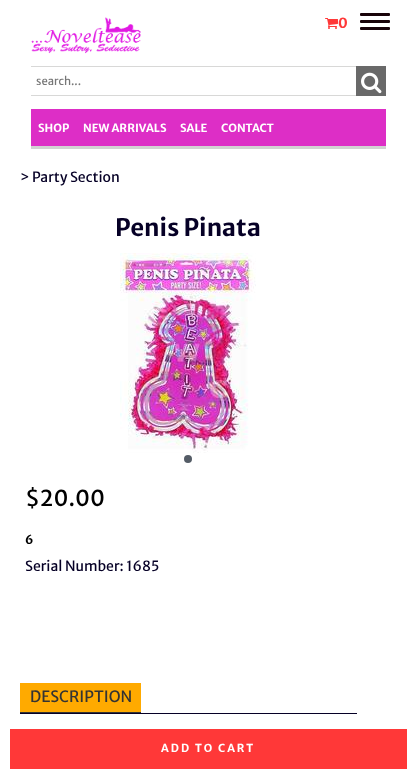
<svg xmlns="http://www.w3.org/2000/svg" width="417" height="779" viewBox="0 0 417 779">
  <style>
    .t1 { font: bold 14px Merriweather Sans; fill: #ff3838; }
    .t2 { font: 11.25px Merriweather Sans; fill: #777; }
    .t3 { font: bold 11.25px Merriweather Sans; fill: #fff; }
    .t4 { font: 14px Merriweather Sans; fill: #060026; }
    .t5 { font: bold 24px Merriweather Sans; fill: #060026; }
    .t6 { font: 22px Merriweather Sans; fill: #000; }
    .t7 { font: bold 12px Merriweather Sans; fill: #000; }
    .t8 { font: bold 11px Merriweather Sans; letter-spacing: 2px; fill: #fff; }
    .t9 { font: 15.5px Merriweather Sans; fill: #333; }
  </style>
  <defs>
    <clipPath id="clip1"><rect x="31" y="66" width="355" height="35"/></clipPath>
  </defs>
  <rect width="100%" height="100%" fill="#fff"/>
  <image x="31" y="17" width="110" height="37" href="images/1.png"/>
  <image x="325" y="18" width="13" height="11" href="images/2.png"/>
  <text x="338" y="28" class="t1">0</text>
  <rect x="360" y="13" width="30" height="3" rx="1" fill="#180309"/>
  <rect x="360" y="20" width="30" height="3" rx="1" fill="#180309"/>
  <rect x="360" y="27" width="30" height="3" rx="1" fill="#180309"/>
  <g clip-path="url(#clip1)">
    <rect x="30.5" y="66.5" width="355" height="29" fill="none" stroke="#d8d8d7"/>
  </g>
  <text x="36" y="85" class="t2">search...</text>
  <rect x="356" y="66" width="30" height="30" fill="#696969"/>
  <image x="361" y="72" width="21" height="22" href="images/3.png"/>
  <rect x="31" y="109" width="355" height="37" fill="#dd2ec6"/>
  <rect x="31" y="146" width="355" height="3" fill="#d2d2d2"/>
  <text x="38" y="132" class="t3">SHOP</text>
  <text x="83" y="132" class="t3">NEW ARRIVALS</text>
  <text x="180" y="132" class="t3">SALE</text>
  <text x="221" y="132" class="t3">CONTACT</text>
  <text x="20" y="182" class="t4">&gt; Party Section</text>
  <text x="115" y="236" class="t5">Penis Pinata</text>
  <image x="120" y="253" width="136" height="200" href="images/4.png"/>
  <circle cx="188" cy="459" r="4" fill="#545c66"/>
  <text x="25" y="506" class="t6">$20.00</text>
  <text x="25" y="544" class="t7">6</text>
  <text x="25" y="571" class="t4">Serial Number: 1685</text>
  <rect x="10" y="729" width="397" height="40" fill="#ff3838"/>
  <text x="161" y="752" class="t8">ADD TO CART</text>
  <rect x="20" y="713" width="337" height="1" fill="#060026"/>
  <rect x="20" y="683" width="121" height="29" fill="#fa0"/>
  <rect x="20" y="712" width="121" height="1" fill="#333"/>
  <text x="30" y="702" class="t9">DESCRIPTION</text>
</svg>
